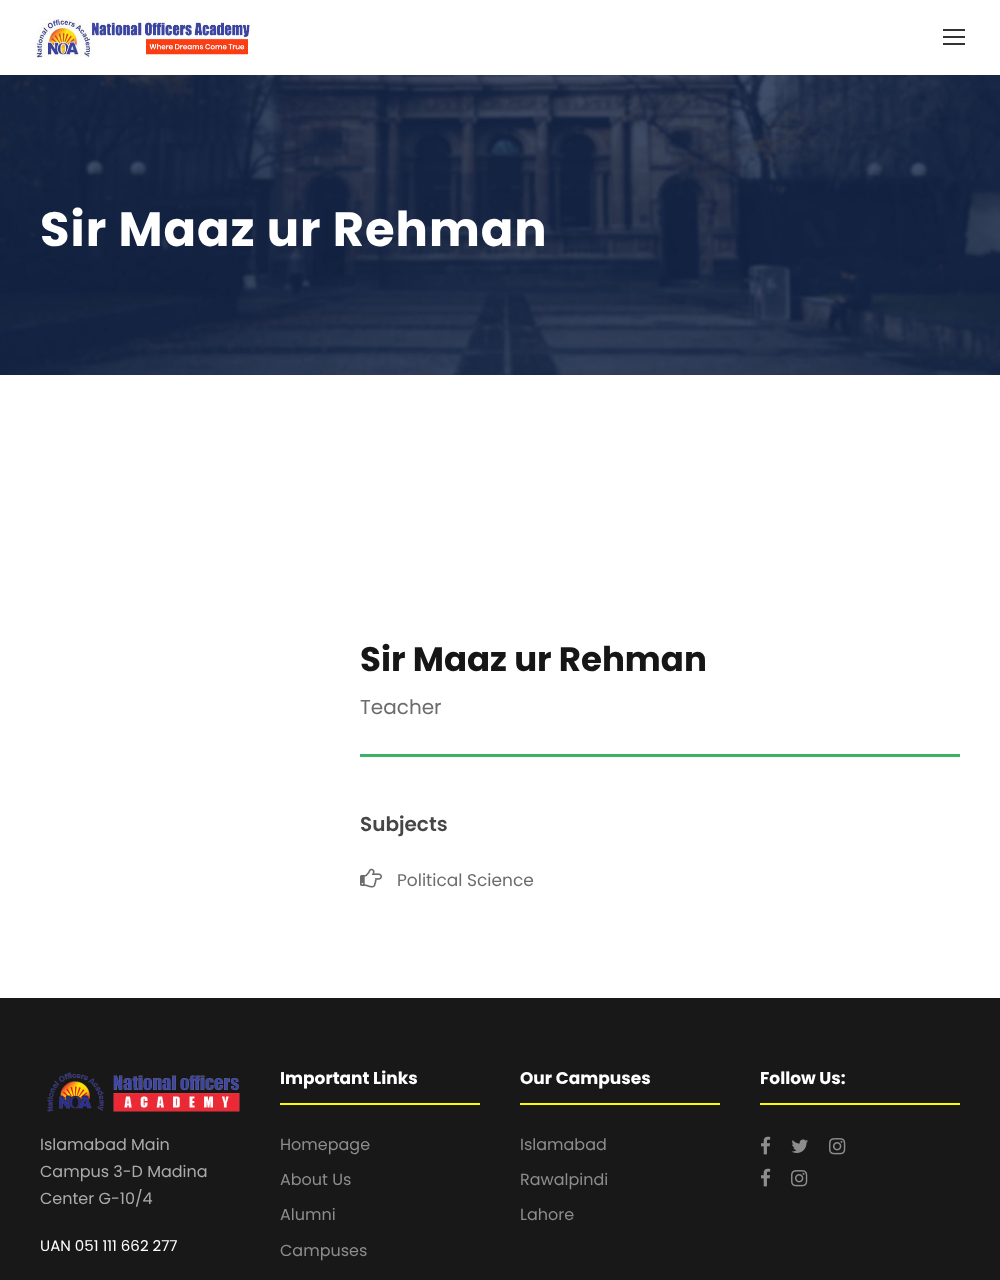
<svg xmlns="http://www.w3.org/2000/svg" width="1000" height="1280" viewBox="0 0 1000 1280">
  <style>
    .t1 { font: bold 48px Poppins; letter-spacing: 1px; fill: #fff; }
    .t2 { font: bold 34px Poppins; fill: #161616; }
    .t3 { font: 20px Poppins; fill: #6c6c6c; }
    .t4 { font: 600 20px Poppins; fill: #464646; }
    .t5 { font: 17px Poppins; fill: #6c6c6c; }
    .t6 { font: bold 17px Poppins; fill: #fff; }
    .t7 { font: 16px Poppins; fill: #8d8d8d; }
    .t8 { font: 16px Poppins; fill: #ababab; }
    .t9 { font: 15px Poppins; fill: #fff; }
  </style>
  <rect width="100%" height="100%" fill="#fff"/>
  <image x="35" y="19" width="217" height="39" href="images/1.png"/>
  <rect x="943" y="29" width="22" height="2" fill="#333"/>
  <rect x="943" y="36" width="22" height="2" fill="#333"/>
  <rect x="943" y="43" width="22" height="2" fill="#333"/>
  <image x="0" y="75" width="1000" height="300" href="images/2.png"/>
  <text x="40" y="246" class="t1">Sir Maaz ur Rehman</text>
  <text x="360" y="671" class="t2">Sir Maaz ur Rehman</text>
  <text x="360" y="714" class="t3">Teacher</text>
  <rect x="360" y="754" width="600" height="3" fill="#3db166"/>
  <text x="360" y="831" class="t4">Subjects</text>
  <image x="360" y="868" width="22" height="20" href="images/3.png"/>
  <text x="397" y="886" class="t5">Political Science</text>
  <rect x="0" y="998" width="1000" height="282" fill="#181818"/>
  <rect x="280" y="1103" width="200" height="2" fill="#faff00"/>
  <text x="280" y="1084" class="t6">Important Links</text>
  <text x="280" y="1150" class="t7">Homepage</text>
  <text x="280" y="1185" class="t7">About Us</text>
  <text x="280" y="1220" class="t7">Alumni</text>
  <text x="280" y="1256" class="t7">Campuses</text>
  <rect x="520" y="1103" width="200" height="2" fill="#faff00"/>
  <text x="520" y="1084" class="t6">Our Campuses</text>
  <text x="520" y="1150" class="t7">Islamabad</text>
  <text x="520" y="1185" class="t7">Rawalpindi</text>
  <text x="520" y="1220" class="t7">Lahore</text>
  <rect x="760" y="1103" width="200" height="2" fill="#faff00"/>
  <text x="760" y="1084" class="t6">Follow Us:</text>
  <image x="761" y="1136" width="10" height="19" href="images/4.png"/>
  <image x="791" y="1139" width="17" height="14" href="images/5.png"/>
  <image x="829" y="1138" width="17" height="17" href="images/6.png"/>
  <image x="761" y="1168" width="10" height="19" href="images/4.png"/>
  <image x="791" y="1170" width="17" height="17" href="images/6.png"/>
  <image x="47" y="1072" width="193" height="40" href="images/7.png"/>
  <text x="40" y="1150" class="t8">Islamabad Main</text>
  <text x="40" y="1177" class="t8">Campus 3-D Madina</text>
  <text x="40" y="1204" class="t8">Center G-10/4</text>
  <text x="40" y="1251" class="t9">UAN 051 111 662 277</text>
</svg>
